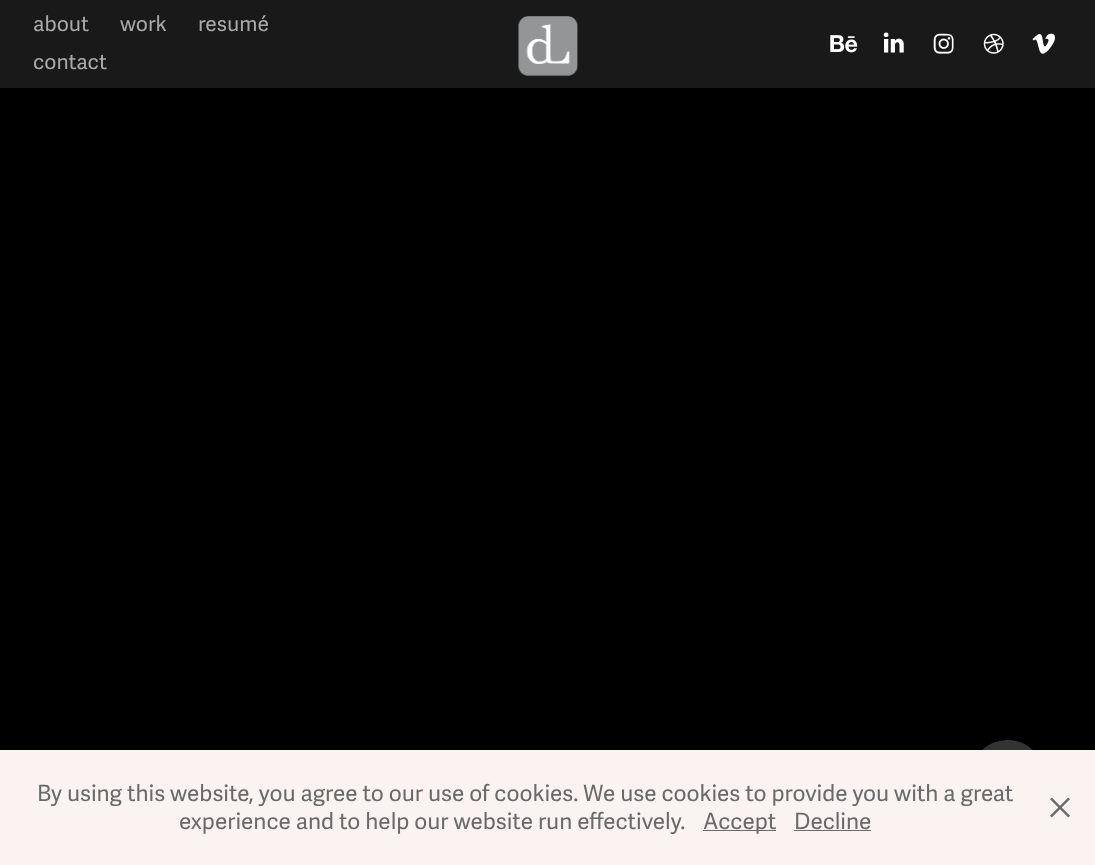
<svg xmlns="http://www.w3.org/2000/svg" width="1095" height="865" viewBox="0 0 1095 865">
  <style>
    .t1 { font: 21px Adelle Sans; fill: #a9a9a9; }
    .t2 { font: 22.5px Adelle Sans; fill: #6a6a6a; }
  </style>
  <rect width="100%" height="100%" fill="#000"/>
  <rect x="0" y="0" width="1095" height="88" fill="#191919"/>
  <text x="33" y="31" class="t1">about</text>
  <text x="120" y="31" class="t1">work</text>
  <text x="198" y="31" class="t1">resumé</text>
  <text x="33" y="69" class="t1">contact</text>
  <image x="518" y="16" width="60" height="60" href="images/1.png"/>
  <image x="830" y="35" width="28" height="18" href="images/2.png"/>
  <image x="883" y="32" width="21" height="21" href="images/3.png"/>
  <image x="933" y="33" width="21" height="21" href="images/4.png"/>
  <image x="983" y="33" width="21" height="21" href="images/5.png"/>
  <image x="1032" y="33" width="23" height="21" href="images/6.png"/>
  <circle cx="1007.5" cy="777.5" r="37.5" fill="#333"/>
  <rect x="0" y="750" width="1095" height="115" fill="#fbf2f2"/>
  <text x="37" y="801" class="t2">By using this website, you agree to our use of cookies. We use cookies to provide you with a great</text>
  <text x="179" y="829" class="t2">experience and to help our website run effectively.</text>
  <rect x="703" y="830" width="73" height="1" fill="#6a6a6a"/>
  <text x="703" y="829" class="t2">Accept</text>
  <text x="794" y="829" class="t2">Decline</text>
  <rect x="794" y="830" width="77" height="1" fill="#6a6a6a"/>
  <image x="1050" y="798" width="20" height="20" href="images/7.png"/>
</svg>
